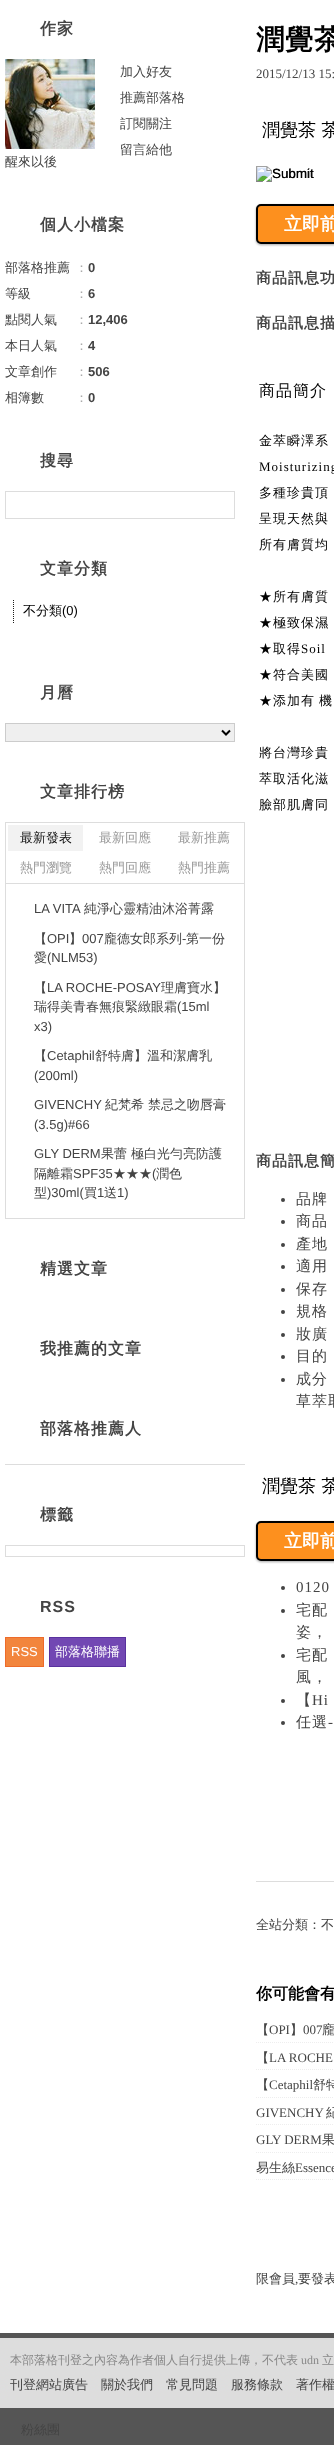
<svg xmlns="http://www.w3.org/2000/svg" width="334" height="2445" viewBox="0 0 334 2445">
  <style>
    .t1 { font: bold 16px WenQuanYi Zen Hei; letter-spacing: 1px; fill: #444; }
    .t2 { font: 500 13px WenQuanYi Zen Hei; fill: #444; }
    .t3 { font: 500 13px WenQuanYi Zen Hei; fill: #aaa; }
    .t4 { font: bold 13px Liberation Sans; fill: #444; }
    .t5 { font: 500 13px WenQuanYi Zen Hei; fill: #000; }
    .t6 { font: 13px Liberation Sans; fill: #000; }
    .t7 { font: 500 13px WenQuanYi Zen Hei; fill: #111; }
    .t8 { font: 500 13px WenQuanYi Zen Hei; fill: #999; }
    .t9 { font: 13px Liberation Sans; fill: #444; }
    .t10 { font: bold 16px Liberation Sans; letter-spacing: 1px; fill: #444; }
    .t11 { font: 13px Liberation Sans; fill: #fff; }
    .t12 { font: 500 13px WenQuanYi Zen Hei; fill: #fff; }
    .t13 { font: bold 28px WenQuanYi Zen Hei; letter-spacing: 1px; fill: #000; }
    .t14 { font: 13px Liberation Serif; fill: #444; }
    .t15 { font: 500 18px WenQuanYi Zen Hei; fill: #000; }
    .t16 { font: 13.5px Liberation Sans; fill: #000; }
    .t17 { font: bold 18px WenQuanYi Zen Hei; fill: #fff; }
    .t18 { font: bold 15px WenQuanYi Zen Hei; letter-spacing: 1px; fill: #444; }
    .t19 { font: 500 16px WenQuanYi Zen Hei; letter-spacing: 1px; fill: #000; }
    .t20 { font: 500 13px WenQuanYi Zen Hei; letter-spacing: 1px; fill: #000; }
    .t21 { font: 13px Liberation Serif; letter-spacing: 1px; fill: #000; }
    .t22 { font: 500 15px WenQuanYi Zen Hei; letter-spacing: 1px; fill: #444; }
    .t23 { font: 15px Liberation Serif; letter-spacing: 1px; fill: #444; }
    .t24 { font: bold 16px WenQuanYi Zen Hei; fill: #000; }
    .t25 { font: 500 12px WenQuanYi Zen Hei; fill: #888; }
    .t26 { font: 12px Liberation Serif; fill: #888; }
  </style>
  <rect width="100%" height="100%" fill="#555"/>
  <rect x="0" y="0" width="334" height="2333" fill="#fff"/>
  <text x="40" y="34" class="t1">作家</text>
  <text x="120" y="76" class="t2">加入好友</text>
  <text x="120" y="102" class="t2">推薦部落格</text>
  <text x="120" y="128" class="t2">訂閱關注</text>
  <text x="120" y="154" class="t2">留言給他</text>
  <image x="5" y="59" width="90" height="90" href="images/1.png"/>
  <text x="5" y="166" class="t2">醒來以後</text>
  <text x="40" y="230" class="t1">個人小檔案</text>
  <text x="5" y="272" class="t2">部落格推薦</text>
  <text x="75" y="272" class="t3">：</text>
  <text x="88" y="272" class="t4">0</text>
  <text x="5" y="298" class="t2">等級</text>
  <text x="75" y="298" class="t3">：</text>
  <text x="88" y="298" class="t4">6</text>
  <text x="5" y="324" class="t2">點閱人氣</text>
  <text x="75" y="324" class="t3">：</text>
  <text x="88" y="324" class="t4">12,406</text>
  <text x="5" y="350" class="t2">本日人氣</text>
  <text x="75" y="350" class="t3">：</text>
  <text x="88" y="350" class="t4">4</text>
  <text x="5" y="376" class="t2">文章創作</text>
  <text x="75" y="376" class="t3">：</text>
  <text x="88" y="376" class="t4">506</text>
  <text x="5" y="402" class="t2">相簿數</text>
  <text x="75" y="402" class="t3">：</text>
  <text x="88" y="402" class="t4">0</text>
  <text x="40" y="466" class="t1">搜尋</text>
  <rect x="5" y="491" width="230" height="1" fill="#ddd"/>
  <rect x="5" y="518" width="195" height="1" fill="#ddd"/>
  <rect x="5" y="491" width="1" height="28" fill="#ddd"/>
  <rect x="234" y="491" width="1" height="28" fill="#ddd"/>
  <rect x="200" y="518" width="35" height="1" fill="#ddd"/>
  <text x="40" y="574" class="t1">文章分類</text>
  <image x="13" y="600" width="1" height="23" href="images/2.png"/>
  <text x="23" y="615" class="t5">不分類</text>
  <text x="62" y="615" class="t6">(0)</text>
  <text x="40" y="698" class="t1">月曆</text>
  <rect x="5.5" y="723.5" width="229" height="18" fill="#efefef" stroke="#ccc"/>
  <path d="M222 730.5L226 734.5L230 730.5" fill="none" stroke="#000" stroke-width="2"/>
  <text x="40" y="797" class="t1">文章排行榜</text>
  <rect x="5.5" y="822.5" width="239" height="61" fill="none" stroke="#ddd"/>
  <rect x="8" y="825" width="75" height="26" fill="#f2f2f2"/>
  <text x="20" y="842" class="t7">最新發表</text>
  <text x="99" y="842" class="t8">最新回應</text>
  <text x="178" y="842" class="t8">最新推薦</text>
  <text x="20" y="872" class="t8">熱門瀏覽</text>
  <text x="99" y="872" class="t8">熱門回應</text>
  <text x="178" y="872" class="t8">熱門推薦</text>
  <rect x="244" y="884" width="1" height="335" fill="#ddd"/>
  <rect x="5" y="1218" width="240" height="1" fill="#ddd"/>
  <rect x="5" y="884" width="1" height="335" fill="#ddd"/>
  <text x="34" y="913" class="t9">LA VITA</text>
  <text x="84" y="913" class="t2">純淨心靈精油沐浴菁露</text>
  <text x="34" y="943" class="t2">【</text>
  <text x="47" y="943" class="t9">OPI</text>
  <text x="69" y="943" class="t2">】</text>
  <text x="82" y="943" class="t9">007</text>
  <text x="104" y="943" class="t2">龐德女郎系列</text>
  <text x="182" y="943" class="t9">-</text>
  <text x="186" y="943" class="t2">第一份</text>
  <text x="34" y="962" class="t2">愛</text>
  <text x="47" y="962" class="t9">(NLM53)</text>
  <text x="34" y="992" class="t2">【</text>
  <text x="47" y="992" class="t9">LA ROCHE-POSAY</text>
  <text x="161" y="992" class="t2">理膚寶水】</text>
  <text x="34" y="1011" class="t2">瑞得美青春無痕緊緻眼霜</text>
  <text x="177" y="1011" class="t9">(15ml</text>
  <text x="34" y="1031" class="t9">x3)</text>
  <text x="34" y="1060" class="t2">【</text>
  <text x="47" y="1060" class="t9">Cetaphil</text>
  <text x="95" y="1060" class="t2">舒特膚】溫和潔膚乳</text>
  <text x="34" y="1080" class="t9">(200ml)</text>
  <text x="34" y="1109" class="t9">GIVENCHY</text>
  <text x="105" y="1109" class="t2">紀梵希 禁忌之吻唇膏</text>
  <text x="34" y="1129" class="t9">(3.5g)#66</text>
  <text x="34" y="1158" class="t9">GLY DERM</text>
  <text x="101" y="1158" class="t2">果蕾 極白光勻亮防護</text>
  <text x="34" y="1178" class="t2">隔離霜</text>
  <text x="73" y="1178" class="t9">SPF35</text>
  <text x="113" y="1178" class="t2">★★★</text>
  <text x="152" y="1178" class="t9">(</text>
  <text x="156" y="1178" class="t2">潤色</text>
  <text x="34" y="1197" class="t2">型</text>
  <text x="47" y="1197" class="t9">)30ml(</text>
  <text x="84" y="1197" class="t2">買</text>
  <text x="97" y="1197" class="t9">1</text>
  <text x="104" y="1197" class="t2">送</text>
  <text x="117" y="1197" class="t9">1)</text>
  <text x="40" y="1274" class="t1">精選文章</text>
  <text x="40" y="1354" class="t1">我推薦的文章</text>
  <text x="40" y="1434" class="t1">部落格推薦人</text>
  <rect x="5" y="1464" width="240" height="1" fill="#ddd"/>
  <text x="40" y="1520" class="t1">標籤</text>
  <rect x="5.5" y="1545.5" width="239" height="11" fill="none" stroke="#ddd"/>
  <text x="40" y="1612" class="t10">RSS</text>
  <rect x="5.5" y="1637.5" width="38" height="29" fill="#f2853d" stroke="#ed6b2a"/>
  <text x="11" y="1656" class="t11">RSS</text>
  <rect x="49.5" y="1637.5" width="76" height="29" fill="#7247b3" stroke="#59329e"/>
  <text x="55" y="1656" class="t12">部落格聯播</text>
  <text x="256" y="49" class="t13">潤覺茶</text>
  <text x="256" y="78" class="t14">2015/12/13 15:</text>
  <text x="262" y="136" class="t15">潤覺茶 茶</text>
  <image x="256" y="166" width="57" height="16" href="images/3.png"/>
  <text x="272" y="178" class="t16">Submit</text>
  <rect x="256" y="205" width="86" height="40" rx="5" fill="#0000003d" filter="blur(1px)"/>
  <rect x="256" y="205" width="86" height="40" rx="5" fill="#0000001f" filter="blur(1px)"/>
  <rect x="257" y="205" width="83" height="38" rx="4" fill="#fd901e" stroke="#000" stroke-width="2"/>
  <text x="284" y="230" class="t17">立即前</text>
  <text x="256" y="283" class="t18">商品訊息功</text>
  <text x="256" y="328" class="t18">商品訊息描</text>
  <text x="259" y="396" class="t19">商品簡介</text>
  <text x="259" y="445" class="t20">金萃瞬澤系</text>
  <text x="259" y="471" class="t21">Moisturizing</text>
  <text x="259" y="497" class="t20">多種珍貴頂</text>
  <text x="259" y="523" class="t20">呈現天然與</text>
  <text x="259" y="549" class="t20">所有膚質均</text>
  <text x="259" y="601" class="t20">★所有膚質</text>
  <text x="259" y="627" word-spacing="-1" class="t20">★極致保濕</text>
  <text x="259" y="653" class="t20">★取得</text>
  <text x="301" y="653" class="t21">Soil</text>
  <text x="259" y="679" class="t20">★符合美國</text>
  <text x="259" y="705" word-spacing="-1" class="t20">★添加有 機</text>
  <text x="259" y="757" class="t20">將台灣珍貴</text>
  <text x="259" y="783" class="t20">萃取活化滋</text>
  <text x="259" y="809" class="t20">臉部肌膚同</text>
  <text x="256" y="1166" class="t18">商品訊息簡</text>
  <circle cx="283" cy="1200" r="2" fill="#444"/>
  <text x="296" y="1204" word-spacing="-1" class="t22">品牌</text>
  <circle cx="283" cy="1222" r="2" fill="#444"/>
  <text x="296" y="1226" class="t22">商品</text>
  <circle cx="283" cy="1245" r="2" fill="#444"/>
  <text x="296" y="1249" class="t22">產地</text>
  <circle cx="283" cy="1267" r="2" fill="#444"/>
  <text x="296" y="1271" class="t22">適用</text>
  <circle cx="283" cy="1290" r="2" fill="#444"/>
  <text x="296" y="1294" class="t22">保存</text>
  <circle cx="283" cy="1312" r="2" fill="#444"/>
  <text x="296" y="1316" class="t22">規格</text>
  <circle cx="283" cy="1335" r="2" fill="#444"/>
  <text x="296" y="1339" class="t22">妝廣</text>
  <circle cx="283" cy="1357" r="2" fill="#444"/>
  <text x="296" y="1361" class="t22">目的</text>
  <circle cx="283" cy="1380" r="2" fill="#444"/>
  <text x="296" y="1384" class="t22">成分</text>
  <text x="296" y="1406" class="t22">草萃取</text>
  <text x="262" y="1492" class="t15">潤覺茶 茶</text>
  <rect x="256" y="1522" width="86" height="40" rx="5" fill="#0000003d" filter="blur(1px)"/>
  <rect x="256" y="1522" width="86" height="40" rx="5" fill="#0000001f" filter="blur(1px)"/>
  <rect x="257" y="1522" width="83" height="38" rx="4" fill="#fd901e" stroke="#000" stroke-width="2"/>
  <text x="284" y="1547" class="t17">立即前</text>
  <circle cx="283" cy="1588" r="2" fill="#444"/>
  <text x="296" y="1592" class="t23">0120</text>
  <circle cx="283" cy="1611" r="2" fill="#444"/>
  <text x="296" y="1615" class="t22">宅配</text>
  <text x="296" y="1637" class="t22">姿，</text>
  <circle cx="283" cy="1656" r="2" fill="#444"/>
  <text x="296" y="1660" class="t22">宅配</text>
  <text x="296" y="1682" class="t22">風，</text>
  <circle cx="283" cy="1701" r="2" fill="#444"/>
  <text x="296" y="1705" class="t22">【</text>
  <text x="312" y="1705" class="t23">Hi</text>
  <circle cx="283" cy="1723" r="2" fill="#444"/>
  <text x="296" y="1727" class="t22">任選</text>
  <text x="328" y="1727" class="t23">-</text>
  <rect x="256" y="1881" width="78" height="1" fill="#ddd"/>
  <text x="256" y="1929" class="t2">全站分類：不</text>
  <text x="256" y="1999" class="t24">你可能會有</text>
  <path d="M256 2042.5H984" fill="none" stroke="#eee" stroke-dasharray="1 1"/>
  <text x="256" y="2034" class="t2">【</text>
  <text x="269" y="2034" class="t14">OPI</text>
  <text x="290" y="2034" class="t2">】</text>
  <text x="303" y="2034" class="t14">007</text>
  <text x="322" y="2034" class="t2">龐</text>
  <path d="M256 2069.5H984" fill="none" stroke="#eee" stroke-dasharray="1 1"/>
  <text x="256" y="2062" class="t2">【</text>
  <text x="269" y="2062" class="t14">LA ROCHE</text>
  <path d="M256 2097.5H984" fill="none" stroke="#eee" stroke-dasharray="1 1"/>
  <text x="256" y="2089" class="t2">【</text>
  <text x="269" y="2089" class="t14">Cetaphil</text>
  <text x="313" y="2089" class="t2">舒特</text>
  <path d="M256 2124.5H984" fill="none" stroke="#eee" stroke-dasharray="1 1"/>
  <text x="256" y="2117" class="t14">GIVENCHY</text>
  <text x="326" y="2117" class="t2">紀</text>
  <path d="M256 2152.5H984" fill="none" stroke="#eee" stroke-dasharray="1 1"/>
  <text x="256" y="2144" class="t14">GLY DERM</text>
  <text x="322" y="2144" class="t2">果</text>
  <path d="M256 2179.5H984" fill="none" stroke="#eee" stroke-dasharray="1 1"/>
  <text x="256" y="2172" class="t2">易生絲</text>
  <text x="295" y="2172" class="t14">Essence</text>
  <text x="256" y="2283" class="t2">限會員</text>
  <text x="295" y="2283" class="t14">,</text>
  <text x="298" y="2283" class="t2">要發表</text>
  <rect x="0" y="2338" width="334" height="70" fill="#ddd"/>
  <text x="10" y="2364" class="t25">本部落格刊登之內容為作者個人自行提供上傳，不代表</text>
  <text x="301" y="2364" class="t26">udn</text>
  <text x="322" y="2364" class="t25">立</text>
  <text x="10" y="2389" class="t2">刊登網站廣告</text>
  <text x="101" y="2389" class="t2">關於我們</text>
  <text x="166" y="2389" class="t2">常見問題</text>
  <text x="231" y="2389" class="t2">服務條款</text>
  <text x="296" y="2389" class="t2">著作權</text>
  <text x="21" y="2434" class="t2">粉絲團</text>
</svg>
